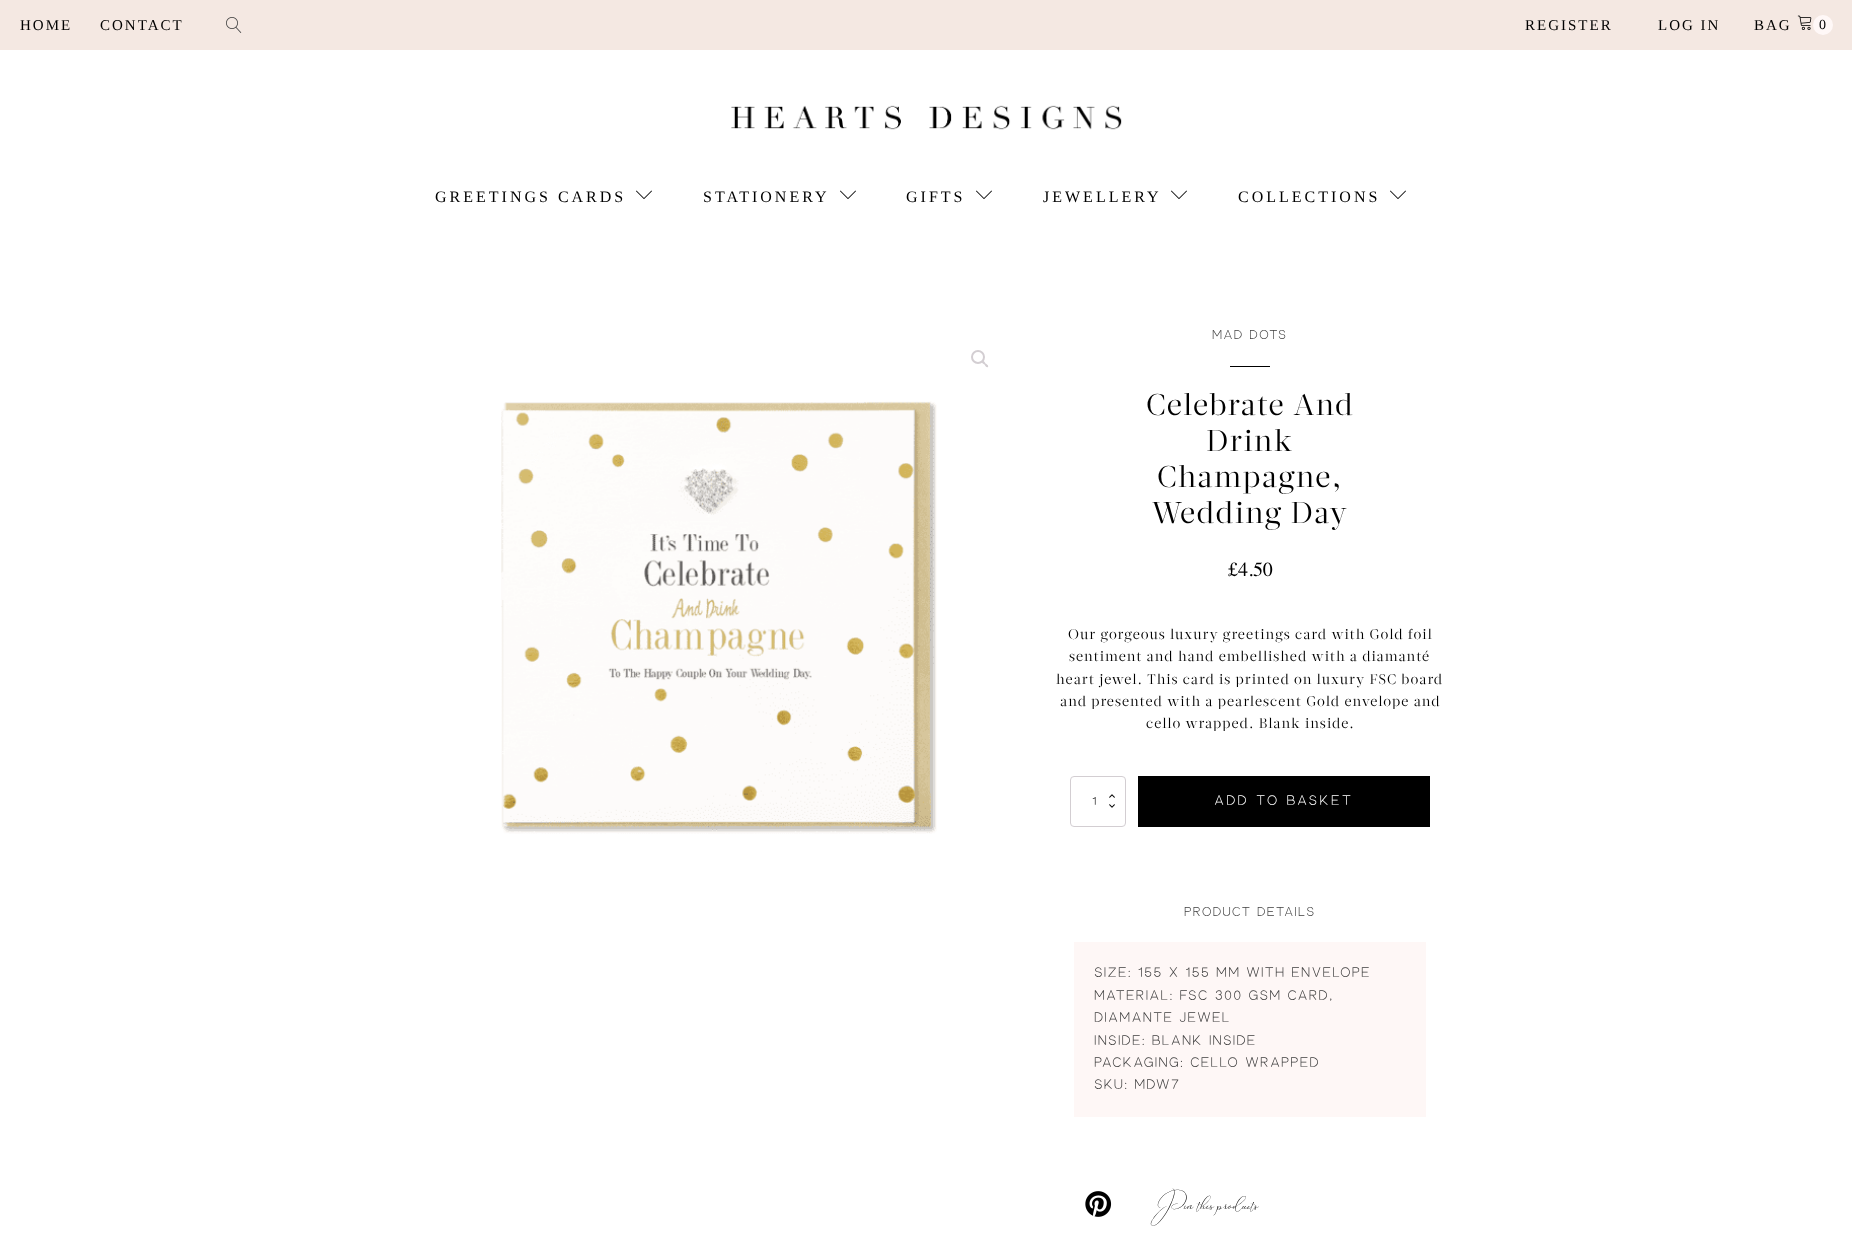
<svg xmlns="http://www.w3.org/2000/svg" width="1852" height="1253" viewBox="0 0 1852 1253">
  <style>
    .t1 { font: 15px Liberation Serif; letter-spacing: 2px; fill: #000; }
    .t2 { font: 14px Liberation Serif; letter-spacing: 1.25px; fill: #000; }
    .t3 { font: 16px Liberation Serif; letter-spacing: 3px; fill: #000; }
    .t4 { font: 300 13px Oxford; letter-spacing: 1.25px; fill: #404040; }
    .t5 { font: 30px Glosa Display; letter-spacing: 1.25px; fill: #000; }
    .t6 { font: 20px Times; fill: #000; }
    .t7 { font: 14px Glosa Display; letter-spacing: 1px; fill: #000; }
    .t8 { font: 300 12px Oxford; letter-spacing: 2.25px; fill: #000; }
    .t9 { font: 300 14px Oxford; letter-spacing: 2.25px; fill: #fff; }
    .t10 { font: 300 14px Oxford; letter-spacing: 1.25px; fill: #404040; }
    .t11 { font: bold 12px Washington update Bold; fill: #000; }
  </style>
  <rect width="100%" height="100%" fill="#fff"/>
  <rect x="0" y="0" width="1852" height="50" fill="#f4e8e2"/>
  <text x="20" y="30" class="t1">HOME</text>
  <text x="100" y="30" class="t1">CONTACT</text>
  <image x="226" y="17" width="16" height="16" href="images/1.png"/>
  <text x="1525" y="30" class="t1">REGISTER</text>
  <text x="1658" y="30" class="t1">LOG IN</text>
  <text x="1754" y="30" class="t1">BAG</text>
  <image x="1797" y="15" width="15" height="15" href="images/2.png"/>
  <circle cx="1823" cy="25" r="10" fill="#fff8f7"/>
  <text x="1819" y="29" class="t2">0</text>
  <image x="731" y="105" width="391" height="25" href="images/3.png"/>
  <text x="435" y="202" class="t3">GREETINGS CARDS</text>
  <image x="636" y="190" width="16" height="9" href="images/4.png"/>
  <text x="703" y="202" class="t3">STATIONERY</text>
  <image x="840" y="190" width="16" height="9" href="images/4.png"/>
  <text x="906" y="202" class="t3">GIFTS</text>
  <image x="976" y="190" width="16" height="9" href="images/4.png"/>
  <text x="1043" y="202" class="t3">JEWELLERY</text>
  <image x="1171" y="190" width="16" height="9" href="images/4.png"/>
  <text x="1238" y="202" class="t3">COLLECTIONS</text>
  <image x="1390" y="190" width="16" height="9" href="images/4.png"/>
  <circle cx="978" cy="357" r="6" fill="none" stroke="#d3ced2" stroke-width="2"/>
  <path d="M982 361C983.5 360 985 362.5 985.5 363.5C986.5 364 989 365.5 988 367C986.5 368 985 365.5 984.5 364.5C983.5 364 981 362.5 982 361Z" fill="#d3ced2"/>
  <image x="501" y="401" width="436" height="433" href="images/5.png"/>
  <text x="1212" y="339" class="t4">MAD DOTS</text>
  <rect x="1230" y="366" width="40" height="1" fill="#000"/>
  <text x="1146" y="415" class="t5">Celebrate And</text>
  <text x="1206" y="451" class="t5">Drink</text>
  <text x="1157" y="487" class="t5">Champagne,</text>
  <text x="1152" y="523" class="t5">Wedding Day</text>
  <text x="1228" y="576" class="t6">£4.50</text>
  <text x="1068" y="639" class="t7">Our gorgeous luxury greetings card with Gold foil</text>
  <text x="1069" y="661" class="t7">sentiment and hand embellished with a diamanté</text>
  <text x="1056" y="684" class="t7">heart jewel. This card is printed on luxury FSC board</text>
  <text x="1060" y="706" class="t7">and presented with a pearlescent Gold envelope and</text>
  <text x="1146" y="728" class="t7">cello wrapped. Blank inside.</text>
  <image x="1109" y="794" width="6" height="4" href="images/6.png"/>
  <image x="1109" y="804" width="6" height="4" href="images/7.png"/>
  <rect x="1070.5" y="776.5" width="55" height="50" rx="3.5" fill="none" stroke="#d3ced2"/>
  <text x="1092" y="805" class="t8">1</text>
  <rect x="1138" y="776" width="292" height="51" fill="#000"/>
  <text x="1214" y="805" class="t9">ADD TO BASKET</text>
  <text x="1184" y="916" class="t4">PRODUCT DETAILS</text>
  <rect x="1074" y="942" width="352" height="175" fill="#fef7f6"/>
  <text x="1094" y="977" class="t10">Size: 155 x 155 mm with envelope</text>
  <text x="1094" y="1000" class="t10">Material: FSC 300 GSM CARD,</text>
  <text x="1094" y="1022" class="t10">DIAMANTE JEWEL</text>
  <text x="1094" y="1045" class="t10">Inside: BLANK INSIDE</text>
  <text x="1094" y="1067" class="t10">Packaging: CELLO WRAPPED</text>
  <text x="1094" y="1089" class="t10">SKU: MDW7</text>
  <image x="1085" y="1191" width="27" height="26" href="images/8.png"/>
  <text x="1158" y="1209" class="t11">Pin this products</text>
</svg>
